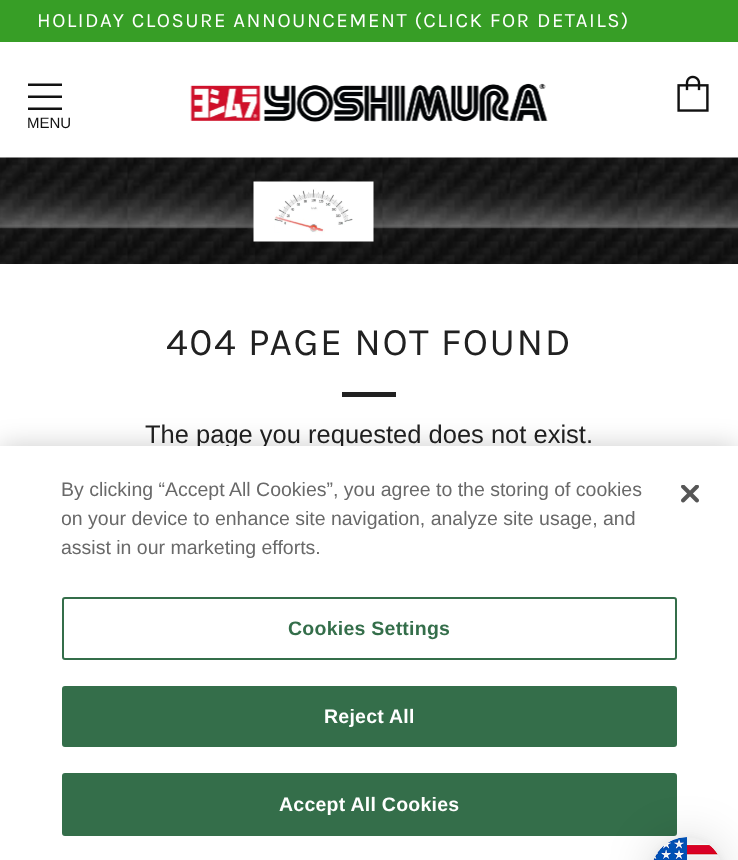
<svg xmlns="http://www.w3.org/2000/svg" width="738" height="860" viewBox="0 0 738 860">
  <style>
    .t1 { font: 20.4px Karla; letter-spacing: 1.5px; fill: #fff; }
    .t2 { font: 15px Arimo; fill: #111; }
    .t3 { font: 39px Karla; letter-spacing: 1.5px; fill: #212121; }
    .t4 { font: 25.5px Arimo; fill: #212121; }
    .t5 { font: 19.5px Arimo; fill: #696969; }
    .t6 { font: bold 19.5px Arimo; letter-spacing: 0.25px; fill: #346e4a; }
    .t7 { font: bold 19.5px Arimo; letter-spacing: 0.25px; fill: #fff; }
  </style>
  <defs>
    <clipPath id="clip1"><rect x="62" y="476" width="582" height="106"/></clipPath>
  </defs>
  <rect width="100%" height="100%" fill="#fff"/>
  <rect x="0" y="0" width="738" height="42" fill="#379e26"/>
  <text x="37" y="27" class="t1">HOLIDAY CLOSURE ANNOUNCEMENT (CLICK FOR DETAILS)</text>
  <path d="M28 86H62V83.5H28ZM28 110H62V107.5H28ZM28 98H62V95.5H28Z" fill="#111"/>
  <text x="27" y="128" class="t2">MENU</text>
  <image x="190" y="83" width="358" height="39" href="images/1.png"/>
  <image x="677" y="75" width="32" height="37" href="images/2.png"/>
  <image x="0" y="157" width="738" height="107" href="images/3.png"/>
  <image x="253" y="181" width="121" height="61" href="images/4.png"/>
  <text x="166" y="355" class="t3">404 PAGE NOT FOUND</text>
  <rect x="342" y="392" width="54" height="5" fill="#212121"/>
  <text x="145" y="443" class="t4">The page you requested does not exist.</text>
  <rect x="0" y="446" width="738" height="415" fill="#00000033" filter="blur(13.5px)"/>
  <rect x="0" y="446" width="738" height="414" fill="#fff"/>
  <text x="61" y="496" class="t5">By clicking “Accept All Cookies”, you agree to the storing of cookies</text>
  <g clip-path="url(#clip1)">
    <text x="61" y="525" class="t5">on your device to enhance site navigation, analyze site usage, and</text>
  </g>
  <text x="61" y="554" class="t5">assist in our marketing efforts.</text>
  <rect x="63" y="598" width="613" height="61" rx="2" fill="none" stroke="#346e4a" stroke-width="2"/>
  <text x="288" y="635" class="t6">Cookies Settings</text>
  <rect x="63" y="687" width="613" height="59" rx="2" fill="#346e4a" stroke="#346e4a" stroke-width="2"/>
  <text x="324" y="723" class="t7">Reject All</text>
  <rect x="63" y="774" width="613" height="61" rx="2" fill="#346e4a" stroke="#346e4a" stroke-width="2"/>
  <text x="279" y="811" class="t7">Accept All Cookies</text>
  <image x="681" y="485" width="18" height="18" href="images/5.png"/>
  <rect x="651" y="840" width="72" height="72" rx="36" fill="#00000029" filter="blur(24px)"/>
  <rect x="651" y="839" width="72" height="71" rx="36" fill="#0000000f" filter="blur(4.5px)"/>
  <image x="653" y="837" width="67" height="23" href="images/6.png"/>
</svg>
